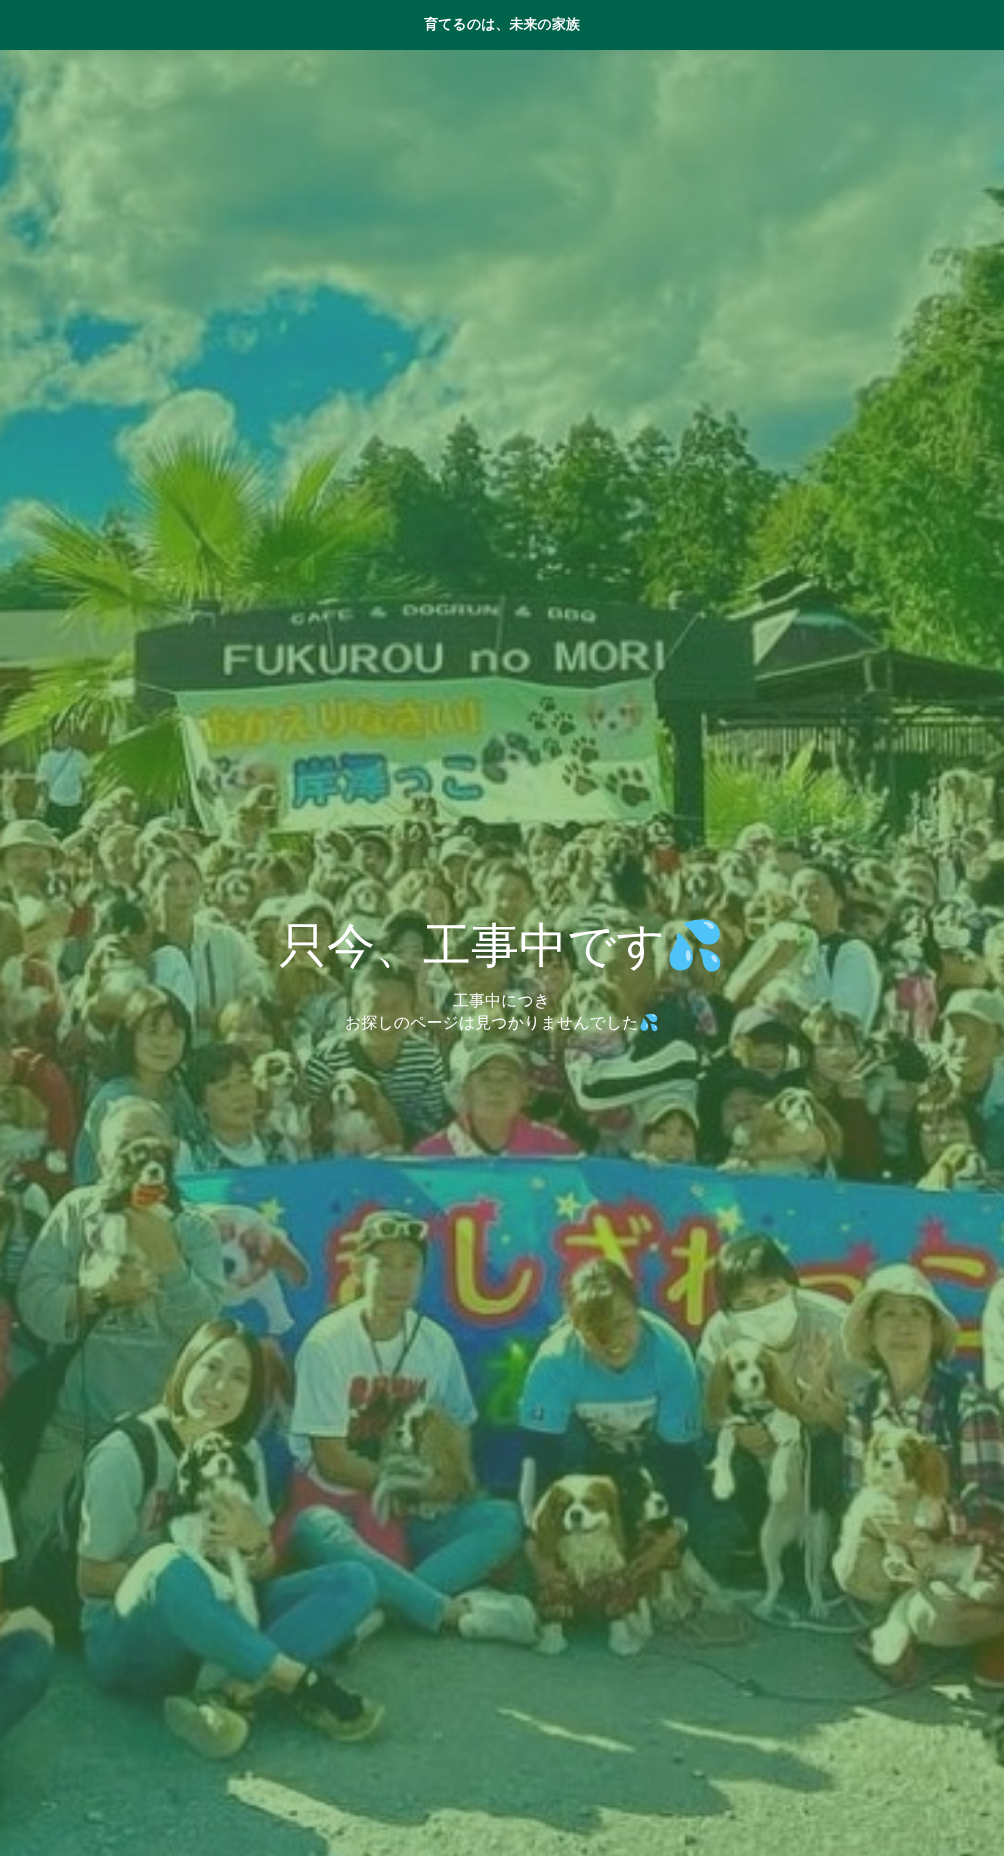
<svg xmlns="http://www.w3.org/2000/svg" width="1004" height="1856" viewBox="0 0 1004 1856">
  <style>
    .t1 { font: bold 14px WenQuanYi Zen Hei; fill: #fff; }
    .t2 { font: 500 48px WenQuanYi Zen Hei; fill: #fff; }
    .t3 { font: 48px Noto Color Emoji; fill: #fff; }
    .t4 { font: 500 16px WenQuanYi Zen Hei; fill: #fff; }
    .t5 { font: 16px Noto Color Emoji; fill: #fff; }
  </style>
  <rect width="100%" height="100%" fill="#00634c"/>
  <text x="424" y="29" class="t1">育てるのは、未来の家族</text>
  <image x="0" y="50" width="1004" height="1806" href="images/1.png"/>
  <text x="279" y="962" class="t2">只今、工事中です</text>
  <text x="665" y="962" class="t3">💦</text>
  <text x="453" y="1006" class="t4">工事中につき</text>
  <text x="345" y="1028" class="t4">お探しのページは見つかりませんでした</text>
  <text x="639" y="1028" class="t5">💦</text>
</svg>
